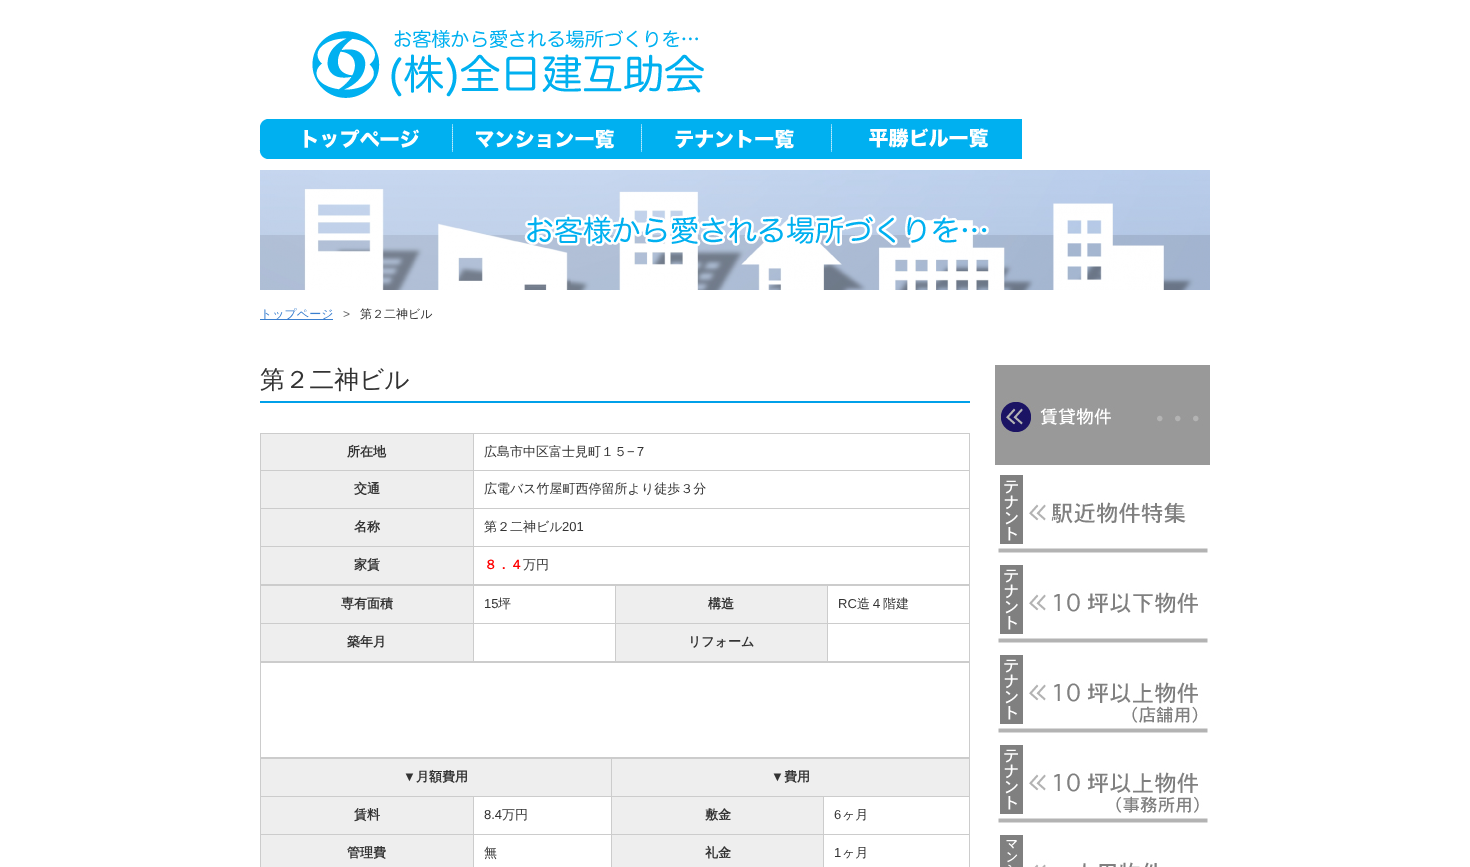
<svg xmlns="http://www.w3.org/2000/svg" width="1470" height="867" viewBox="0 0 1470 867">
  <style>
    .t1 { font: 500 12px WenQuanYi Zen Hei; fill: #3a7fcf; }
    .t2 { font: 12px Liberation Sans; letter-spacing: 10px; fill: #666; }
    .t3 { font: 500 12px WenQuanYi Zen Hei; fill: #333; }
    .t4 { font: 500 24.75px WenQuanYi Zen Hei; fill: #333; }
    .t5 { font: bold 13px WenQuanYi Zen Hei; fill: #333; }
    .t6 { font: 500 13px WenQuanYi Zen Hei; fill: #333; }
    .t7 { font: 13px Liberation Sans; fill: #333; }
    .t8 { font: bold 13px WenQuanYi Zen Hei; fill: #f00; }
    .t9 { font: bold 13px Liberation Sans; fill: #333; }
  </style>
  <rect width="100%" height="100%" fill="#fff"/>
  <image x="312" y="29" width="392" height="69" href="images/1.png"/>
  <image x="259" y="119" width="193" height="40" href="images/2.png"/>
  <image x="452" y="119" width="190" height="40" href="images/3.png"/>
  <image x="642" y="119" width="190" height="40" href="images/4.png"/>
  <image x="832" y="119" width="190" height="40" href="images/5.png"/>
  <image x="260" y="170" width="950" height="120" href="images/6.png"/>
  <rect x="260" y="319" width="73" height="1" fill="#3a7fcf"/>
  <text x="260" y="318" class="t1">トップページ</text>
  <text x="343" y="318" class="t2">&gt;</text>
  <text x="360" y="318" class="t3">第２二神ビル</text>
  <rect x="260" y="401" width="710" height="2" fill="#00a0e9"/>
  <text x="260" y="388" class="t4">第２二神ビル</text>
  <rect x="260" y="433" width="710" height="1" fill="#ccc"/>
  <rect x="969" y="433" width="1" height="152" fill="#ccc"/>
  <rect x="260" y="584" width="710" height="2" fill="#ccc"/>
  <rect x="260" y="433" width="1" height="152" fill="#ccc"/>
  <rect x="261" y="434" width="212" height="36" fill="#eee"/>
  <text x="347" y="456" class="t5">所在地</text>
  <rect x="473" y="470" width="497" height="1" fill="#ccc"/>
  <rect x="473" y="508" width="497" height="1" fill="#ccc"/>
  <rect x="473" y="546" width="497" height="1" fill="#ccc"/>
  <rect x="473" y="546" width="1" height="39" fill="#ccc"/>
  <rect x="260" y="546" width="214" height="1" fill="#ccc"/>
  <rect x="473" y="508" width="1" height="39" fill="#ccc"/>
  <rect x="260" y="508" width="214" height="1" fill="#ccc"/>
  <rect x="473" y="470" width="1" height="39" fill="#ccc"/>
  <rect x="260" y="470" width="214" height="1" fill="#ccc"/>
  <rect x="473" y="433" width="1" height="38" fill="#ccc"/>
  <text x="484" y="456" class="t6">広島市中区富士見町１５</text>
  <text x="627" y="456" class="t7">−</text>
  <text x="634" y="456" class="t6">７</text>
  <rect x="261" y="471" width="212" height="37" fill="#eee"/>
  <text x="354" y="493" class="t5">交通</text>
  <text x="484" y="493" class="t6">広電バス竹屋町西停留所より徒歩３分</text>
  <rect x="261" y="509" width="212" height="37" fill="#eee"/>
  <text x="354" y="531" class="t5">名称</text>
  <text x="484" y="531" class="t6">第２二神ビル</text>
  <text x="562" y="531" class="t7">201</text>
  <rect x="261" y="547" width="212" height="37" fill="#eee"/>
  <text x="354" y="569" class="t5">家賃</text>
  <text x="484" y="569" class="t8">８．４</text>
  <text x="523" y="569" class="t6">万円</text>
  <rect x="969" y="585" width="1" height="77" fill="#ccc"/>
  <rect x="260" y="661" width="710" height="2" fill="#ccc"/>
  <rect x="260" y="585" width="1" height="77" fill="#ccc"/>
  <rect x="261" y="586" width="212" height="37" fill="#eee"/>
  <text x="341" y="608" class="t5">専有面積</text>
  <rect x="827" y="623" width="143" height="1" fill="#ccc"/>
  <rect x="827" y="623" width="1" height="39" fill="#ccc"/>
  <rect x="615" y="623" width="213" height="1" fill="#ccc"/>
  <rect x="615" y="623" width="1" height="39" fill="#ccc"/>
  <rect x="473" y="623" width="143" height="1" fill="#ccc"/>
  <rect x="473" y="623" width="1" height="39" fill="#ccc"/>
  <rect x="260" y="623" width="214" height="1" fill="#ccc"/>
  <rect x="473" y="585" width="1" height="39" fill="#ccc"/>
  <text x="484" y="608" class="t7">15</text>
  <text x="498" y="608" class="t6">坪</text>
  <rect x="616" y="586" width="211" height="37" fill="#eee"/>
  <rect x="615" y="585" width="1" height="39" fill="#ccc"/>
  <text x="708" y="608" class="t5">構造</text>
  <rect x="827" y="585" width="1" height="39" fill="#ccc"/>
  <text x="838" y="608" class="t7">RC</text>
  <text x="857" y="608" class="t6">造４階建</text>
  <rect x="261" y="624" width="212" height="37" fill="#eee"/>
  <text x="347" y="646" class="t5">築年月</text>
  <rect x="616" y="624" width="211" height="37" fill="#eee"/>
  <text x="688" y="646" class="t5">リフォーム</text>
  <rect x="969" y="662" width="1" height="96" fill="#ccc"/>
  <rect x="260" y="757" width="710" height="2" fill="#ccc"/>
  <rect x="260" y="662" width="1" height="205" fill="#ccc"/>
  <rect x="969" y="758" width="1" height="109" fill="#ccc"/>
  <rect x="261" y="759" width="350" height="37" fill="#eee"/>
  <text x="403" y="781" class="t9">▼</text>
  <text x="416" y="781" class="t5">月額費用</text>
  <rect x="612" y="759" width="357" height="37" fill="#eee"/>
  <rect x="823" y="796" width="147" height="1" fill="#ccc"/>
  <rect x="823" y="834" width="147" height="1" fill="#ccc"/>
  <rect x="823" y="834" width="1" height="33" fill="#ccc"/>
  <rect x="611" y="834" width="213" height="1" fill="#ccc"/>
  <rect x="823" y="796" width="1" height="39" fill="#ccc"/>
  <rect x="611" y="796" width="213" height="1" fill="#ccc"/>
  <rect x="611" y="834" width="1" height="33" fill="#ccc"/>
  <rect x="473" y="834" width="139" height="1" fill="#ccc"/>
  <rect x="611" y="796" width="1" height="39" fill="#ccc"/>
  <rect x="473" y="796" width="139" height="1" fill="#ccc"/>
  <rect x="611" y="758" width="1" height="39" fill="#ccc"/>
  <text x="771" y="781" class="t9">▼</text>
  <text x="784" y="781" class="t5">費用</text>
  <rect x="261" y="797" width="212" height="37" fill="#eee"/>
  <rect x="473" y="834" width="1" height="33" fill="#ccc"/>
  <rect x="260" y="834" width="214" height="1" fill="#ccc"/>
  <rect x="473" y="796" width="1" height="39" fill="#ccc"/>
  <rect x="260" y="796" width="214" height="1" fill="#ccc"/>
  <text x="354" y="819" class="t5">賃料</text>
  <text x="484" y="819" class="t7">8.4</text>
  <text x="502" y="819" class="t6">万円</text>
  <rect x="612" y="797" width="211" height="37" fill="#eee"/>
  <text x="705" y="819" class="t5">敷金</text>
  <text x="834" y="819" class="t7">6</text>
  <text x="842" y="819" class="t6">ヶ月</text>
  <rect x="261" y="835" width="212" height="32" fill="#eee"/>
  <text x="347" y="857" class="t5">管理費</text>
  <text x="484" y="857" class="t6">無</text>
  <rect x="612" y="835" width="211" height="32" fill="#eee"/>
  <text x="705" y="857" class="t5">礼金</text>
  <text x="834" y="857" class="t7">1</text>
  <text x="842" y="857" class="t6">ヶ月</text>
  <image x="995" y="365" width="215" height="100" href="images/7.png"/>
  <image x="998" y="475" width="210" height="78" href="images/8.png"/>
  <image x="998" y="565" width="210" height="78" href="images/9.png"/>
  <image x="998" y="655" width="210" height="78" href="images/10.png"/>
  <image x="998" y="745" width="210" height="78" href="images/11.png"/>
  <image x="1000" y="835" width="157" height="32" href="images/12.png"/>
</svg>
